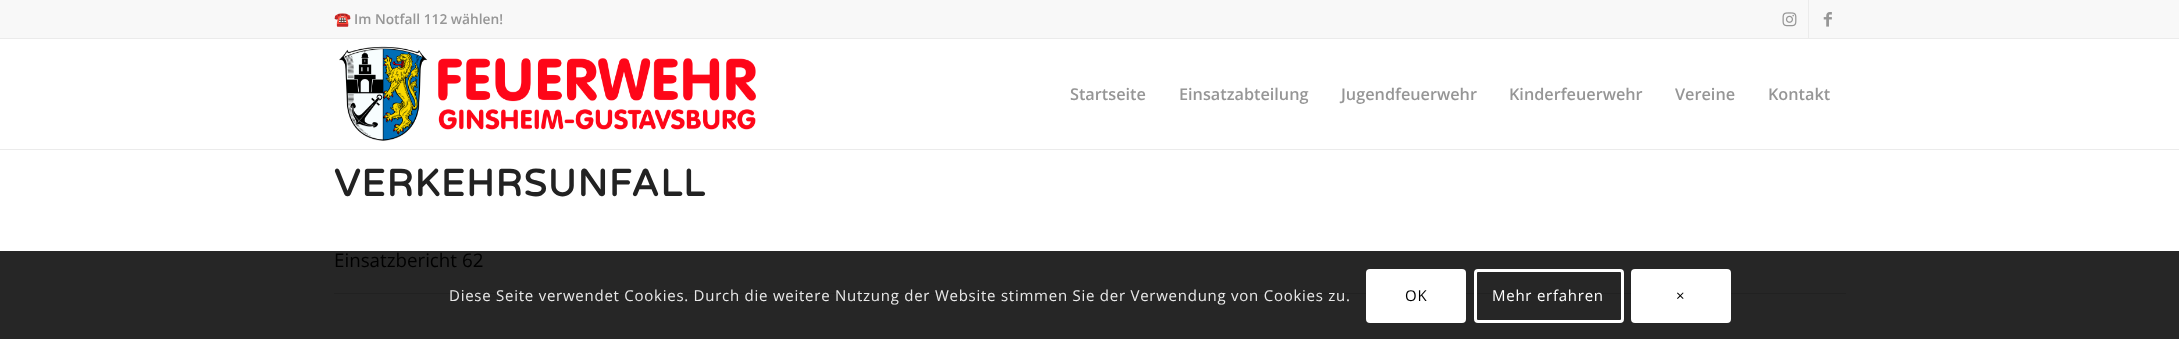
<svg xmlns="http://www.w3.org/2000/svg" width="2179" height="339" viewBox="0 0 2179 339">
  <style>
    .t1 { font: bold 13.75px Noto Color Emoji; fill: #969696; }
    .t2 { font: 600 13.75px Open Sans; fill: #969696; }
    .t3 { font: 600 16.25px Open Sans; fill: #969696; }
    .t4 { font: bold 37.5px Varela Round; letter-spacing: 1.25px; fill: #222; }
    .t5 { font: 18.75px Open Sans; fill: #000; }
    .t6 { font: 15px Open Sans; letter-spacing: 0.75px; fill: #e9e9e9; }
    .t7 { font: 15px Open Sans; letter-spacing: 0.75px; fill: #000; }
    .t8 { font: 15px Open Sans; letter-spacing: 0.75px; fill: #fff; }
  </style>
  <rect width="100%" height="100%" fill="#fff"/>
  <rect x="0" y="251" width="2179" height="88" fill="#262626"/>
  <rect x="0" y="0" width="2179" height="38" fill="#f8f8f8"/>
  <rect x="0" y="38" width="2179" height="1" fill="#ebebeb"/>
  <text x="334" y="24" class="t1">☎️</text>
  <text x="354" y="24" class="t2">Im Notfall 112 wählen!</text>
  <rect x="1808" y="0" width="1" height="38" fill="#ebebeb"/>
  <image x="1782" y="12" width="15" height="15" href="images/1.png"/>
  <image x="1823" y="12" width="9" height="15" href="images/2.png"/>
  <rect x="0" y="149" width="2179" height="1" fill="#ebebeb"/>
  <image x="339" y="46" width="417" height="95" href="images/3.png"/>
  <text x="1070" y="100" class="t3">Startseite</text>
  <text x="1179" y="100" class="t3">Einsatzabteilung</text>
  <text x="1341" y="100" class="t3">Jugendfeuerwehr</text>
  <text x="1509" y="100" class="t3">Kinderfeuerwehr</text>
  <text x="1675" y="100" class="t3">Vereine</text>
  <text x="1768" y="100" class="t3">Kontakt</text>
  <text x="334" y="196" class="t4">VERKEHRSUNFALL</text>
  <text x="334" y="267" class="t5">Einsatzbericht 62</text>
  <rect x="334" y="293" width="1512" height="1" fill="#212121"/>
  <text x="449" y="301" class="t6">Diese Seite verwendet Cookies. Durch die weitere Nutzung der Website stimmen Sie der Verwendung von Cookies zu.</text>
  <rect x="1366" y="269" width="100" height="54" rx="4" fill="#fff"/>
  <text x="1405" y="301" class="t7">OK</text>
  <rect x="1475.5" y="270.5" width="147" height="51" rx="2.5" fill="none" stroke="#fff" stroke-width="3"/>
  <text x="1492" y="301" class="t8">Mehr erfahren</text>
  <rect x="1631" y="269" width="100" height="54" rx="4" fill="#fff"/>
  <text x="1676" y="301" class="t7">×</text>
</svg>
